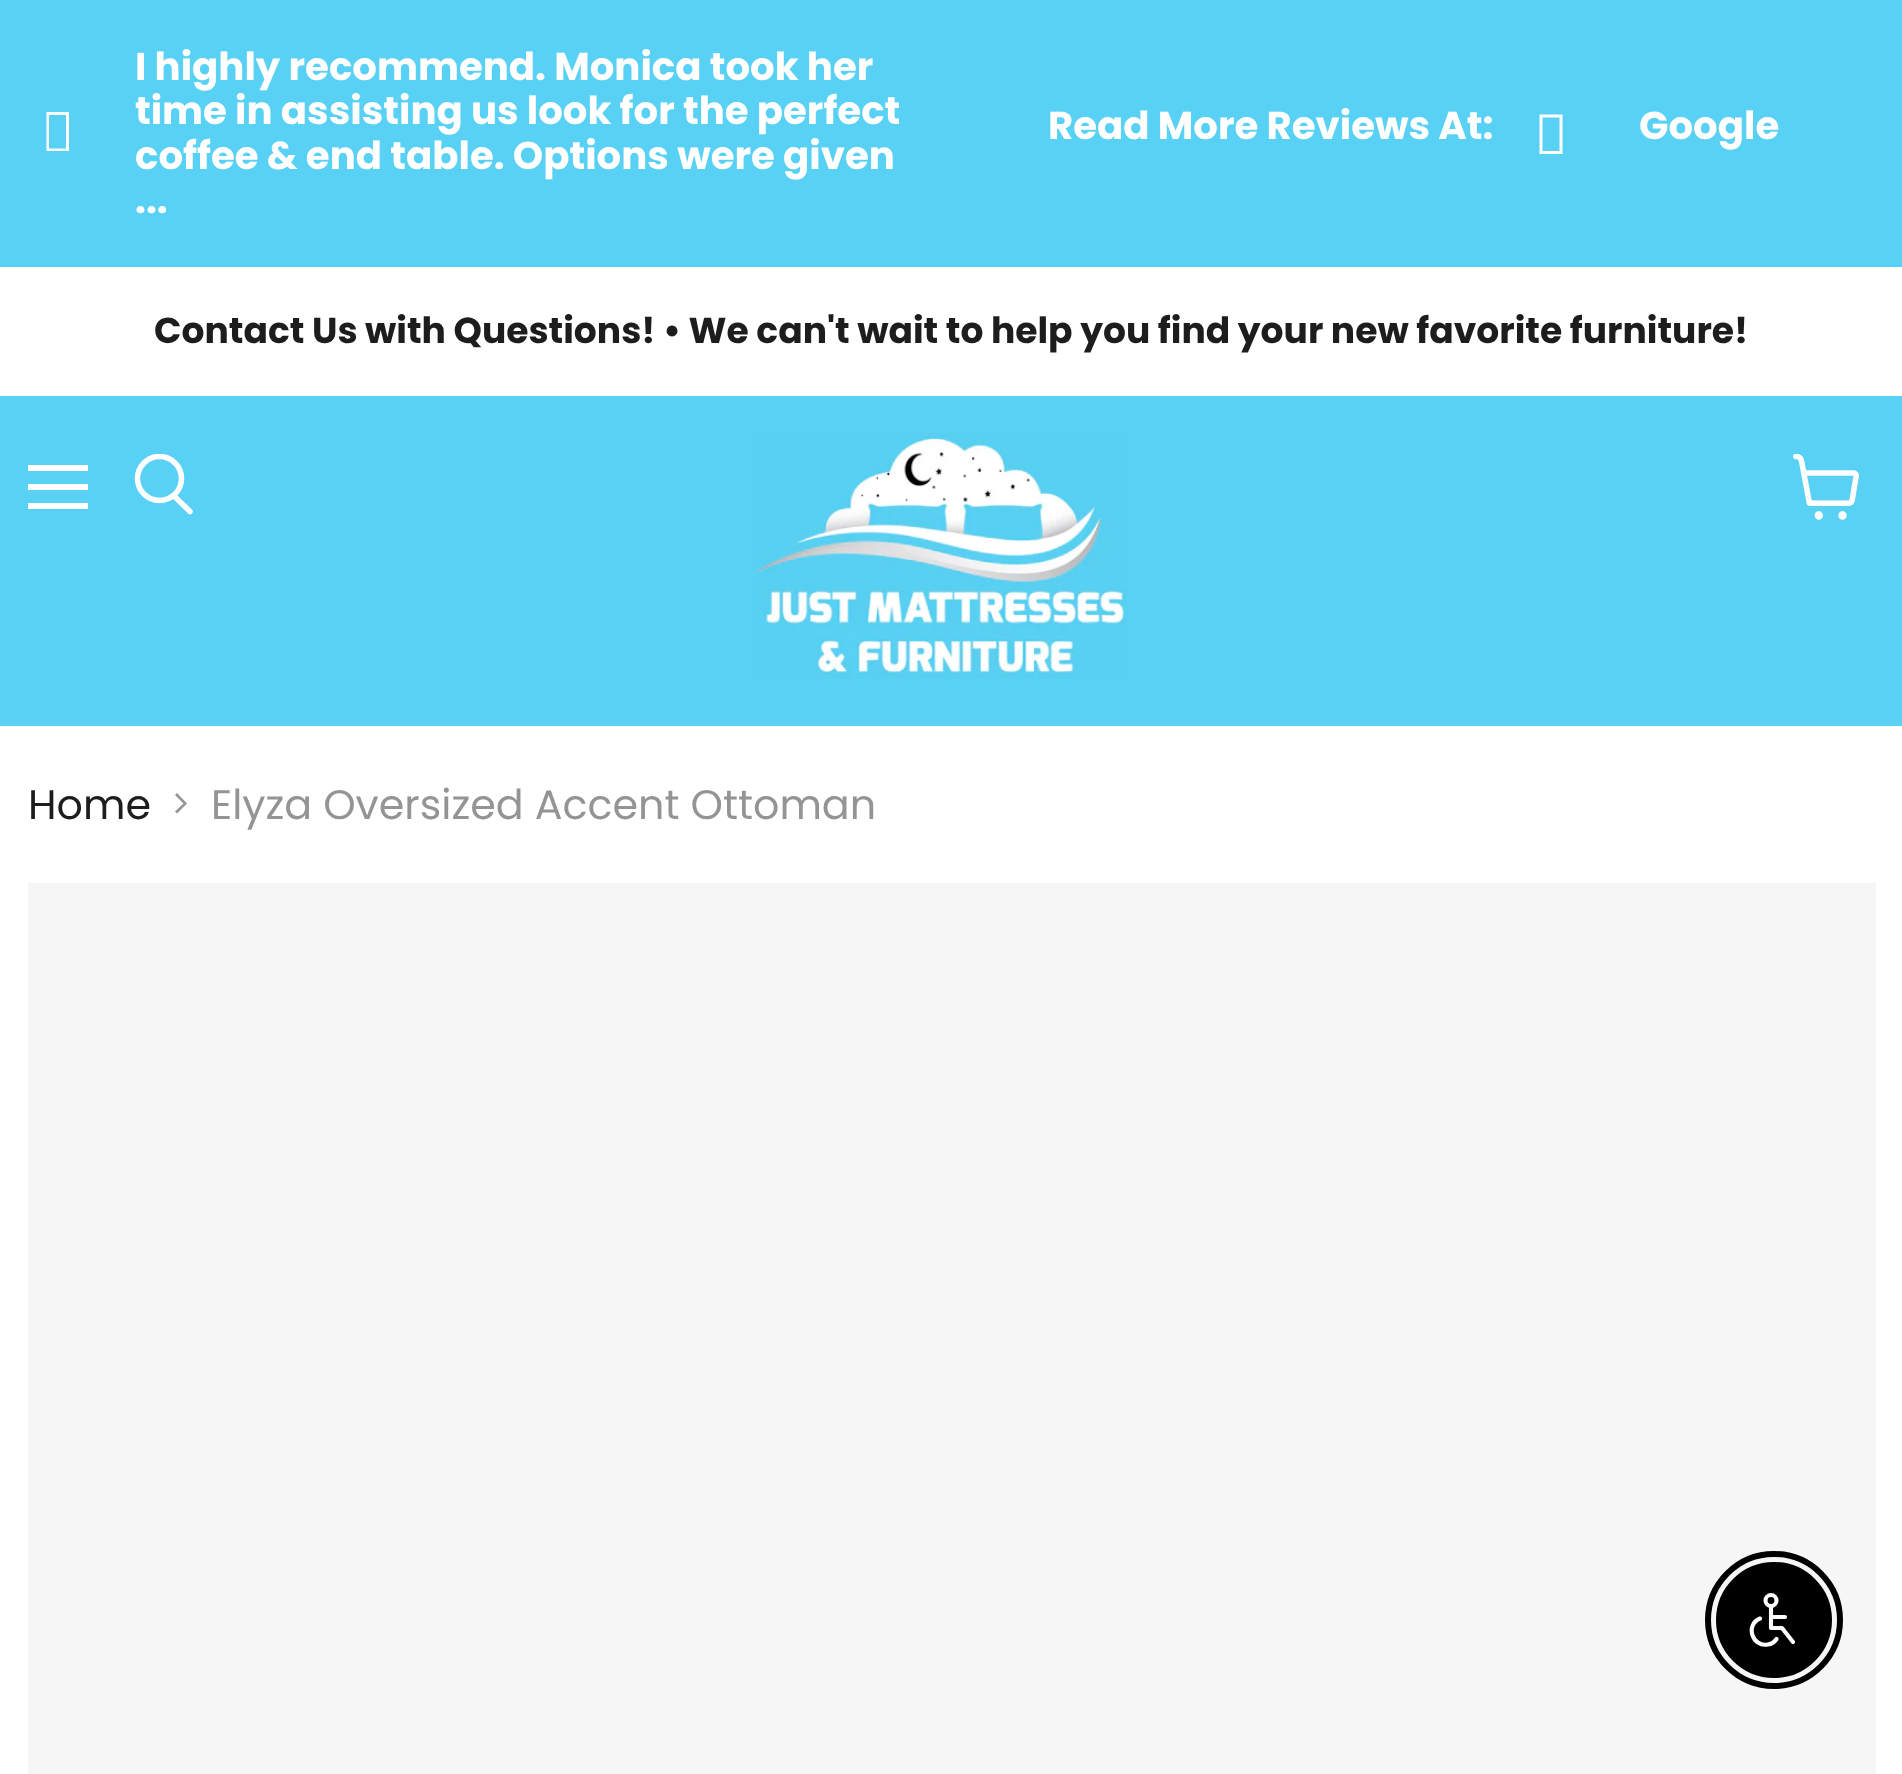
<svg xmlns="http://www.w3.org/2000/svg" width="1902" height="1774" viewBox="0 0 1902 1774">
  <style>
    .t1 { font: bold 38.7px Poppins; fill: #fff; }
    .t2 { font: bold 36.1px Poppins; fill: #1d1d1d; }
    .t3 { font: 41.25px Poppins; fill: #1d1d1d; }
    .t4 { font: 41.25px Poppins; fill: #949494; }
  </style>
  <defs>
    <clipPath id="clip1"><rect x="132" y="454" width="63" height="66"/></clipPath>
  </defs>
  <rect width="100%" height="100%" fill="#fff"/>
  <rect x="0" y="0" width="1902" height="267" fill="#58d1f4"/>
  <path d="M46.5 151V112H69V151ZM49 148.5H66V115H49Z" fill="#fff"/>
  <text x="135" y="80" class="t1">I highly recommend. Monica took her</text>
  <text x="135" y="124" class="t1">time in assisting us look for the perfect</text>
  <text x="135" y="169" class="t1">coffee &amp; end table. Options were given</text>
  <text x="135" y="213" class="t1">...</text>
  <text x="1048" y="139" class="t1">Read More Reviews At:</text>
  <path d="M1539.5 154V114.5H1562.5V154ZM1542.5 151H1559.5V117.5H1542.5Z" fill="#fff"/>
  <text x="1639" y="139" class="t1">Google</text>
  <text x="154" y="343" word-spacing="-0.1" class="t2">Contact Us with Questions! • We can't wait to help you find your new favorite furniture!</text>
  <rect x="0" y="396" width="1902" height="330" fill="#58d1f4"/>
  <rect x="28" y="465" width="60" height="6" fill="#fff"/>
  <rect x="28" y="484" width="60" height="6" fill="#fff"/>
  <rect x="28" y="503" width="60" height="6" fill="#fff"/>
  <path d="M190 511.5L174.5 496.5" fill="none" stroke="#fff" stroke-width="5.5" stroke-linecap="round"/>
  <g clip-path="url(#clip1)">
    <circle cx="159.5" cy="478.5" r="22" fill="none" stroke="#fff" stroke-width="5.5"/>
  </g>
  <image x="754" y="433" width="373" height="246" href="images/1.png"/>
  <image x="1793" y="454" width="66" height="66" href="images/2.png"/>
  <text x="28" y="819" class="t3">Home</text>
  <path d="M175 811.5L177 813.5L187 803.5L177 793L175 795L183.5 803.5Z" fill="#949494" fill-rule="evenodd"/>
  <text x="211" y="819" class="t4">Elyza Oversized Accent Ottoman</text>
  <rect x="28" y="883" width="1848" height="891" fill="#f6f6f6"/>
  <circle cx="1774" cy="1620" r="66" fill="none" stroke="#000" stroke-width="6"/>
  <circle cx="1774" cy="1620" r="56.5" fill="#000" stroke="#000" stroke-width="3"/>
  <circle cx="1771" cy="1600.5" r="5.5" fill="none" stroke="#fff" stroke-width="4.1"/>
  <path d="M1771 1606V1628H1782L1793 1642M1771 1617H1785M1760 1618.5C1745 1624.5 1752 1647.5 1768 1644.5C1771.5 1644 1774.5 1642 1776.5 1639" fill="none" stroke="#fff" stroke-width="4.1" stroke-linecap="round" stroke-linejoin="round"/>
</svg>
